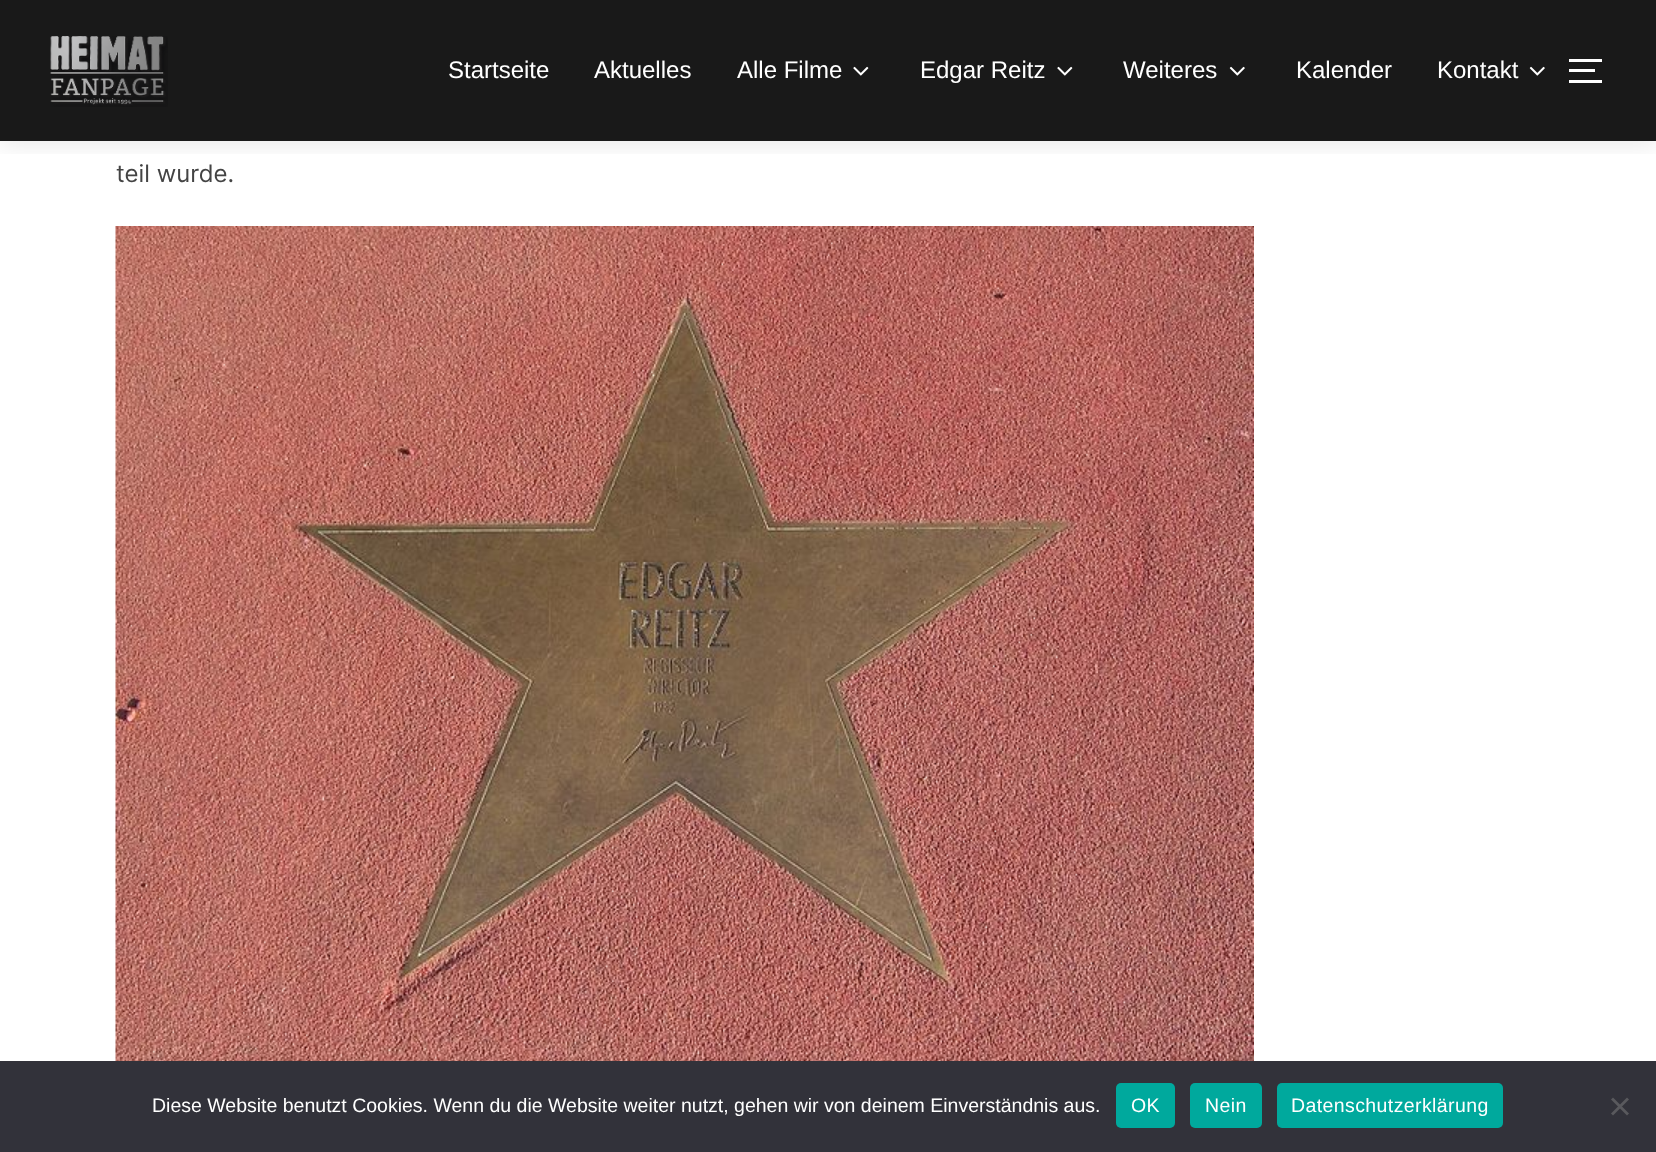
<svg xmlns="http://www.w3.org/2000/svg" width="1656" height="1152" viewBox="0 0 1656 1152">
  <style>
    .t1 { font: 24px Liberation Sans; fill: #fff; }
    .t2 { font: 24px Inter; fill: #444; }
    .t3 { font: 19.5px Liberation Sans; fill: #fff; }
    .t4 { font: 19.5px Liberation Sans; letter-spacing: 0.4px; fill: #fff; }
  </style>
  <defs>
    <clipPath id="clip1"><rect x="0" y="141" width="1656" height="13"/></clipPath>
  </defs>
  <rect width="100%" height="100%" fill="#fff"/>
  <g clip-path="url(#clip1)">
    <rect x="-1" y="-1" width="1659" height="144" fill="#0000001a" filter="blur(13.5px)"/>
  </g>
  <rect x="0" y="0" width="1656" height="141" fill="#000000e6"/>
  <image x="50" y="36" width="118" height="71" href="images/1.png"/>
  <text x="448" y="78" class="t1">Startseite</text>
  <text x="594" y="78" class="t1">Aktuelles</text>
  <text x="737" y="78" class="t1">Alle Filme</text>
  <image x="853" y="66" width="16" height="10" href="images/2.png"/>
  <text x="920" y="78" class="t1">Edgar Reitz</text>
  <image x="1057" y="66" width="16" height="10" href="images/2.png"/>
  <text x="1123" y="78" class="t1">Weiteres</text>
  <image x="1229" y="66" width="16" height="10" href="images/3.png"/>
  <text x="1296" y="78" class="t1">Kalender</text>
  <text x="1437" y="78" class="t1">Kontakt</text>
  <image x="1529" y="66" width="16" height="10" href="images/3.png"/>
  <rect x="1569" y="59" width="33" height="3" fill="#fff"/>
  <rect x="1569" y="69" width="26" height="3" fill="#fff"/>
  <rect x="1569" y="80" width="33" height="3" fill="#fff"/>
  <text x="116" y="182" class="t2">teil wurde.</text>
  <image x="115" y="226" width="1139" height="835" href="images/4.png"/>
  <rect x="0" y="1061" width="1656" height="91" fill="#32323a"/>
  <text x="152" y="1112" class="t3">Diese Website benutzt Cookies. Wenn du die Website weiter nutzt, gehen wir von deinem Einverständnis aus.</text>
  <rect x="1116" y="1083" width="59" height="45" rx="5" fill="#00a99d"/>
  <text x="1131" y="1112" class="t4">OK</text>
  <rect x="1190" y="1083" width="72" height="45" rx="5" fill="#00a99d"/>
  <text x="1205" y="1112" class="t4">Nein</text>
  <rect x="1277" y="1083" width="226" height="45" rx="5" fill="#00a99d"/>
  <text x="1291" y="1112" class="t4">Datenschutzerklärung</text>
  <path d="M1627 1097.5L1629 1099.5L1613 1115.5L1611 1113.5Z" fill="#59595d"/>
  <path d="M1611 1099.5L1613 1097.5L1629 1113.5L1627 1115.5Z" fill="#59595d"/>
</svg>
